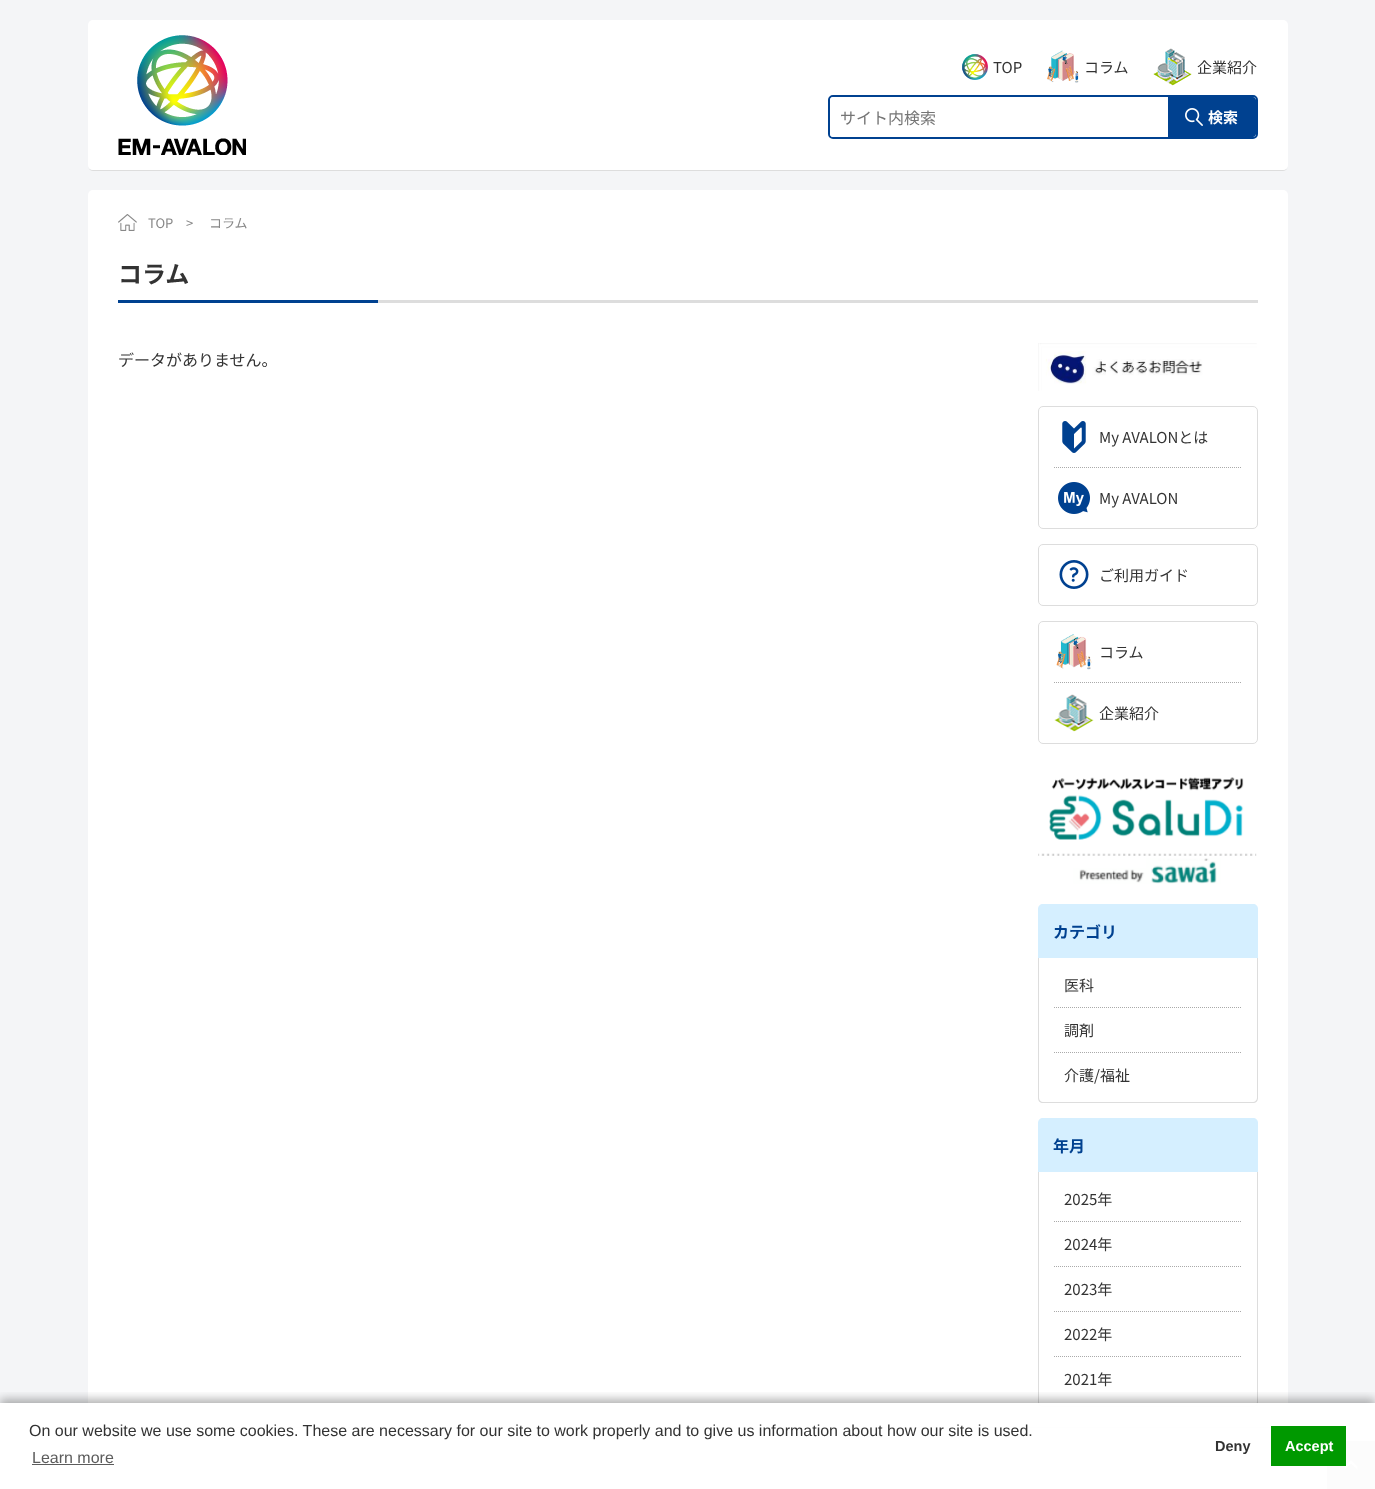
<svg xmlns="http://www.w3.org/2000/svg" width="1375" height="1489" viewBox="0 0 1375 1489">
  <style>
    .t1 { font: 15px Noto Sans JP; fill: #333; }
    .t2 { font: 16px Noto Sans JP; fill: #757575; }
    .t3 { font: bold 15px Noto Sans JP; fill: #fff; }
    .t4 { font: 13px Noto Sans JP; fill: #888; }
    .t5 { font: bold 24px Noto Sans JP; fill: #333; }
    .t6 { font: 16px Noto Sans JP; fill: #333; }
    .t7 { font: bold 16px Noto Sans JP; fill: #004190; }
    .t8 { font: 16px Liberation Sans; fill: #333; }
    .t9 { font: 16px Liberation Sans; fill: #5c5c5c; }
    .t10 { font: bold 14.5px Liberation Sans; fill: #333; }
    .t11 { font: bold 14.5px Liberation Sans; fill: #fff; }
  </style>
  <defs>
    <clipPath id="clip1"><rect x="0" y="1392" width="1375" height="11"/></clipPath>
  </defs>
  <rect width="100%" height="100%" fill="#f4f5f7"/>
  <path d="M88 165C88 168 90 171 93 171H1283C1286 171 1288 168 1288 165C1288 168 1286 170 1283 170H93C90 170 88 168 88 165Z" fill="#ddd"/>
  <rect x="88" y="20" width="1200" height="150" rx="5" fill="#fff"/>
  <image x="118" y="35" width="128" height="120" href="images/1.png"/>
  <image x="962" y="54" width="26" height="26" href="images/2.png"/>
  <text x="993" y="73" class="t1">TOP</text>
  <image x="1047" y="50" width="32" height="33" href="images/3.png"/>
  <text x="1084" y="73" class="t1">コラム</text>
  <image x="1153" y="48" width="39" height="38" href="images/4.png"/>
  <text x="1197" y="73" class="t1">企業紹介</text>
  <rect x="829" y="96" width="428" height="42" rx="4" fill="none" stroke="#004190" stroke-width="2"/>
  <path d="M833 97H1168V137H833C831.5 137 830 135.5 830 134V100C830 98.5 831.5 97 833 97Z" fill="#fff"/>
  <text x="840" y="124" class="t2">サイト内検索</text>
  <path d="M1168 97H1253C1254.5 97 1256 98.5 1256 100V134C1256 135.5 1254.5 137 1253 137H1168Z" fill="#004190"/>
  <image x="1185" y="108" width="18" height="18" href="images/5.png"/>
  <text x="1208" y="123" class="t3">検索</text>
  <path d="M88 1422C88 1425 90 1428 93 1428H1283C1286 1428 1288 1425 1288 1422C1288 1425 1286 1427 1283 1427H93C90 1427 88 1425 88 1422Z" fill="#ddd"/>
  <rect x="88" y="190" width="1200" height="1237" rx="5" fill="#fff"/>
  <image x="118" y="214" width="19" height="17" href="images/6.png"/>
  <text x="148" y="228" class="t4">TOP</text>
  <text x="186" y="228" class="t4">&gt;</text>
  <text x="209" y="228" class="t4">コラム</text>
  <rect x="378" y="300" width="880" height="3" fill="#ddd"/>
  <text x="118" y="283" class="t5">コラム</text>
  <rect x="118" y="300" width="260" height="3" fill="#004190"/>
  <text x="118" y="366" class="t6">データがありません。</text>
  <image x="1038" y="343" width="219" height="48" href="images/7.png"/>
  <rect x="1038.5" y="406.5" width="219" height="122" rx="4.5" fill="none" stroke="#ddd"/>
  <image x="1062" y="421" width="24" height="32" href="images/8.png"/>
  <text x="1099" y="443" class="t1">My AVALONとは</text>
  <path d="M1054 467.5H1242" fill="none" stroke="#aaa" stroke-dasharray="1 1"/>
  <image x="1058" y="482" width="32" height="32" href="images/9.png"/>
  <text x="1099" y="504" class="t1">My AVALON</text>
  <rect x="1038.5" y="544.5" width="219" height="61" rx="4.5" fill="none" stroke="#ddd"/>
  <image x="1059" y="560" width="30" height="29" href="images/10.png"/>
  <text x="1099" y="581" class="t1">ご利用ガイド</text>
  <rect x="1038.5" y="621.5" width="219" height="122" rx="4.5" fill="none" stroke="#ddd"/>
  <image x="1056" y="634" width="36" height="36" href="images/11.png"/>
  <text x="1099" y="658" class="t1">コラム</text>
  <path d="M1054 682.5H1242" fill="none" stroke="#aaa" stroke-dasharray="1 1"/>
  <image x="1054" y="694" width="40" height="38" href="images/12.png"/>
  <text x="1099" y="719" class="t1">企業紹介</text>
  <image x="1038" y="777" width="219" height="107" href="images/13.png"/>
  <path d="M1043 904H1253C1256 904 1258 906 1258 909V958H1038V909C1038 906 1040 904 1043 904Z" fill="#d5efff"/>
  <text x="1053" y="938" class="t7">カテゴリ</text>
  <path d="M1038 958H1258V1098C1258 1101 1256 1103 1253 1103H1043C1040 1103 1038 1101 1038 1098ZM1039 958H1257V1098C1257 1100 1255 1102 1253 1102H1043C1041 1102 1039 1100 1039 1098Z" fill="#ddd" fill-rule="evenodd"/>
  <text x="1064" y="991" class="t1">医科</text>
  <path d="M1054 1007.5H1242" fill="none" stroke="#aaa" stroke-dasharray="1 1"/>
  <text x="1064" y="1036" class="t1">調剤</text>
  <path d="M1054 1052.5H1242" fill="none" stroke="#aaa" stroke-dasharray="1 1"/>
  <text x="1064" y="1081" class="t1">介護/福祉</text>
  <path d="M1043 1118H1253C1256 1118 1258 1120 1258 1123V1172H1038V1123C1038 1120 1040 1118 1043 1118Z" fill="#d5efff"/>
  <text x="1053" y="1152" class="t7">年月</text>
  <path d="M1038 1172H1258V1402C1258 1405 1256 1407 1253 1407H1043C1040 1407 1038 1405 1038 1402ZM1039 1172H1257V1402C1257 1404 1255 1406 1253 1406H1043C1041 1406 1039 1404 1039 1402Z" fill="#ddd" fill-rule="evenodd"/>
  <text x="1064" y="1205" class="t1">2025年</text>
  <path d="M1054 1221.5H1242" fill="none" stroke="#aaa" stroke-dasharray="1 1"/>
  <text x="1064" y="1250" class="t1">2024年</text>
  <path d="M1054 1266.5H1242" fill="none" stroke="#aaa" stroke-dasharray="1 1"/>
  <text x="1064" y="1295" class="t1">2023年</text>
  <path d="M1054 1311.5H1242" fill="none" stroke="#aaa" stroke-dasharray="1 1"/>
  <text x="1064" y="1340" class="t1">2022年</text>
  <path d="M1054 1356.5H1242" fill="none" stroke="#aaa" stroke-dasharray="1 1"/>
  <text x="1064" y="1385" class="t1">2021年</text>
  <rect x="0" y="1467" width="1327" height="22" fill="#fff"/>
  <rect x="1327" y="1441" width="48" height="48" fill="#c3c3c3"/>
  <image x="1344" y="1460" width="14" height="10" href="images/14.png"/>
  <g clip-path="url(#clip1)">
    <rect x="0" y="1399" width="1375" height="86" fill="#0000004d" filter="blur(5px)"/>
  </g>
  <rect x="0" y="1403" width="1375" height="86" fill="#fffffff2"/>
  <text x="29" y="1436" class="t8">On our website we use some cookies. These are necessary for our site to work properly and to give us information about how our site is used.</text>
  <text x="32" y="1463" class="t9">Learn more</text>
  <rect x="32" y="1464" width="82" height="1" fill="#5c5c5c"/>
  <text x="1215" y="1451" class="t10">Deny</text>
  <rect x="1271" y="1426" width="75" height="40" fill="#090"/>
  <text x="1285" y="1451" class="t11">Accept</text>
</svg>
